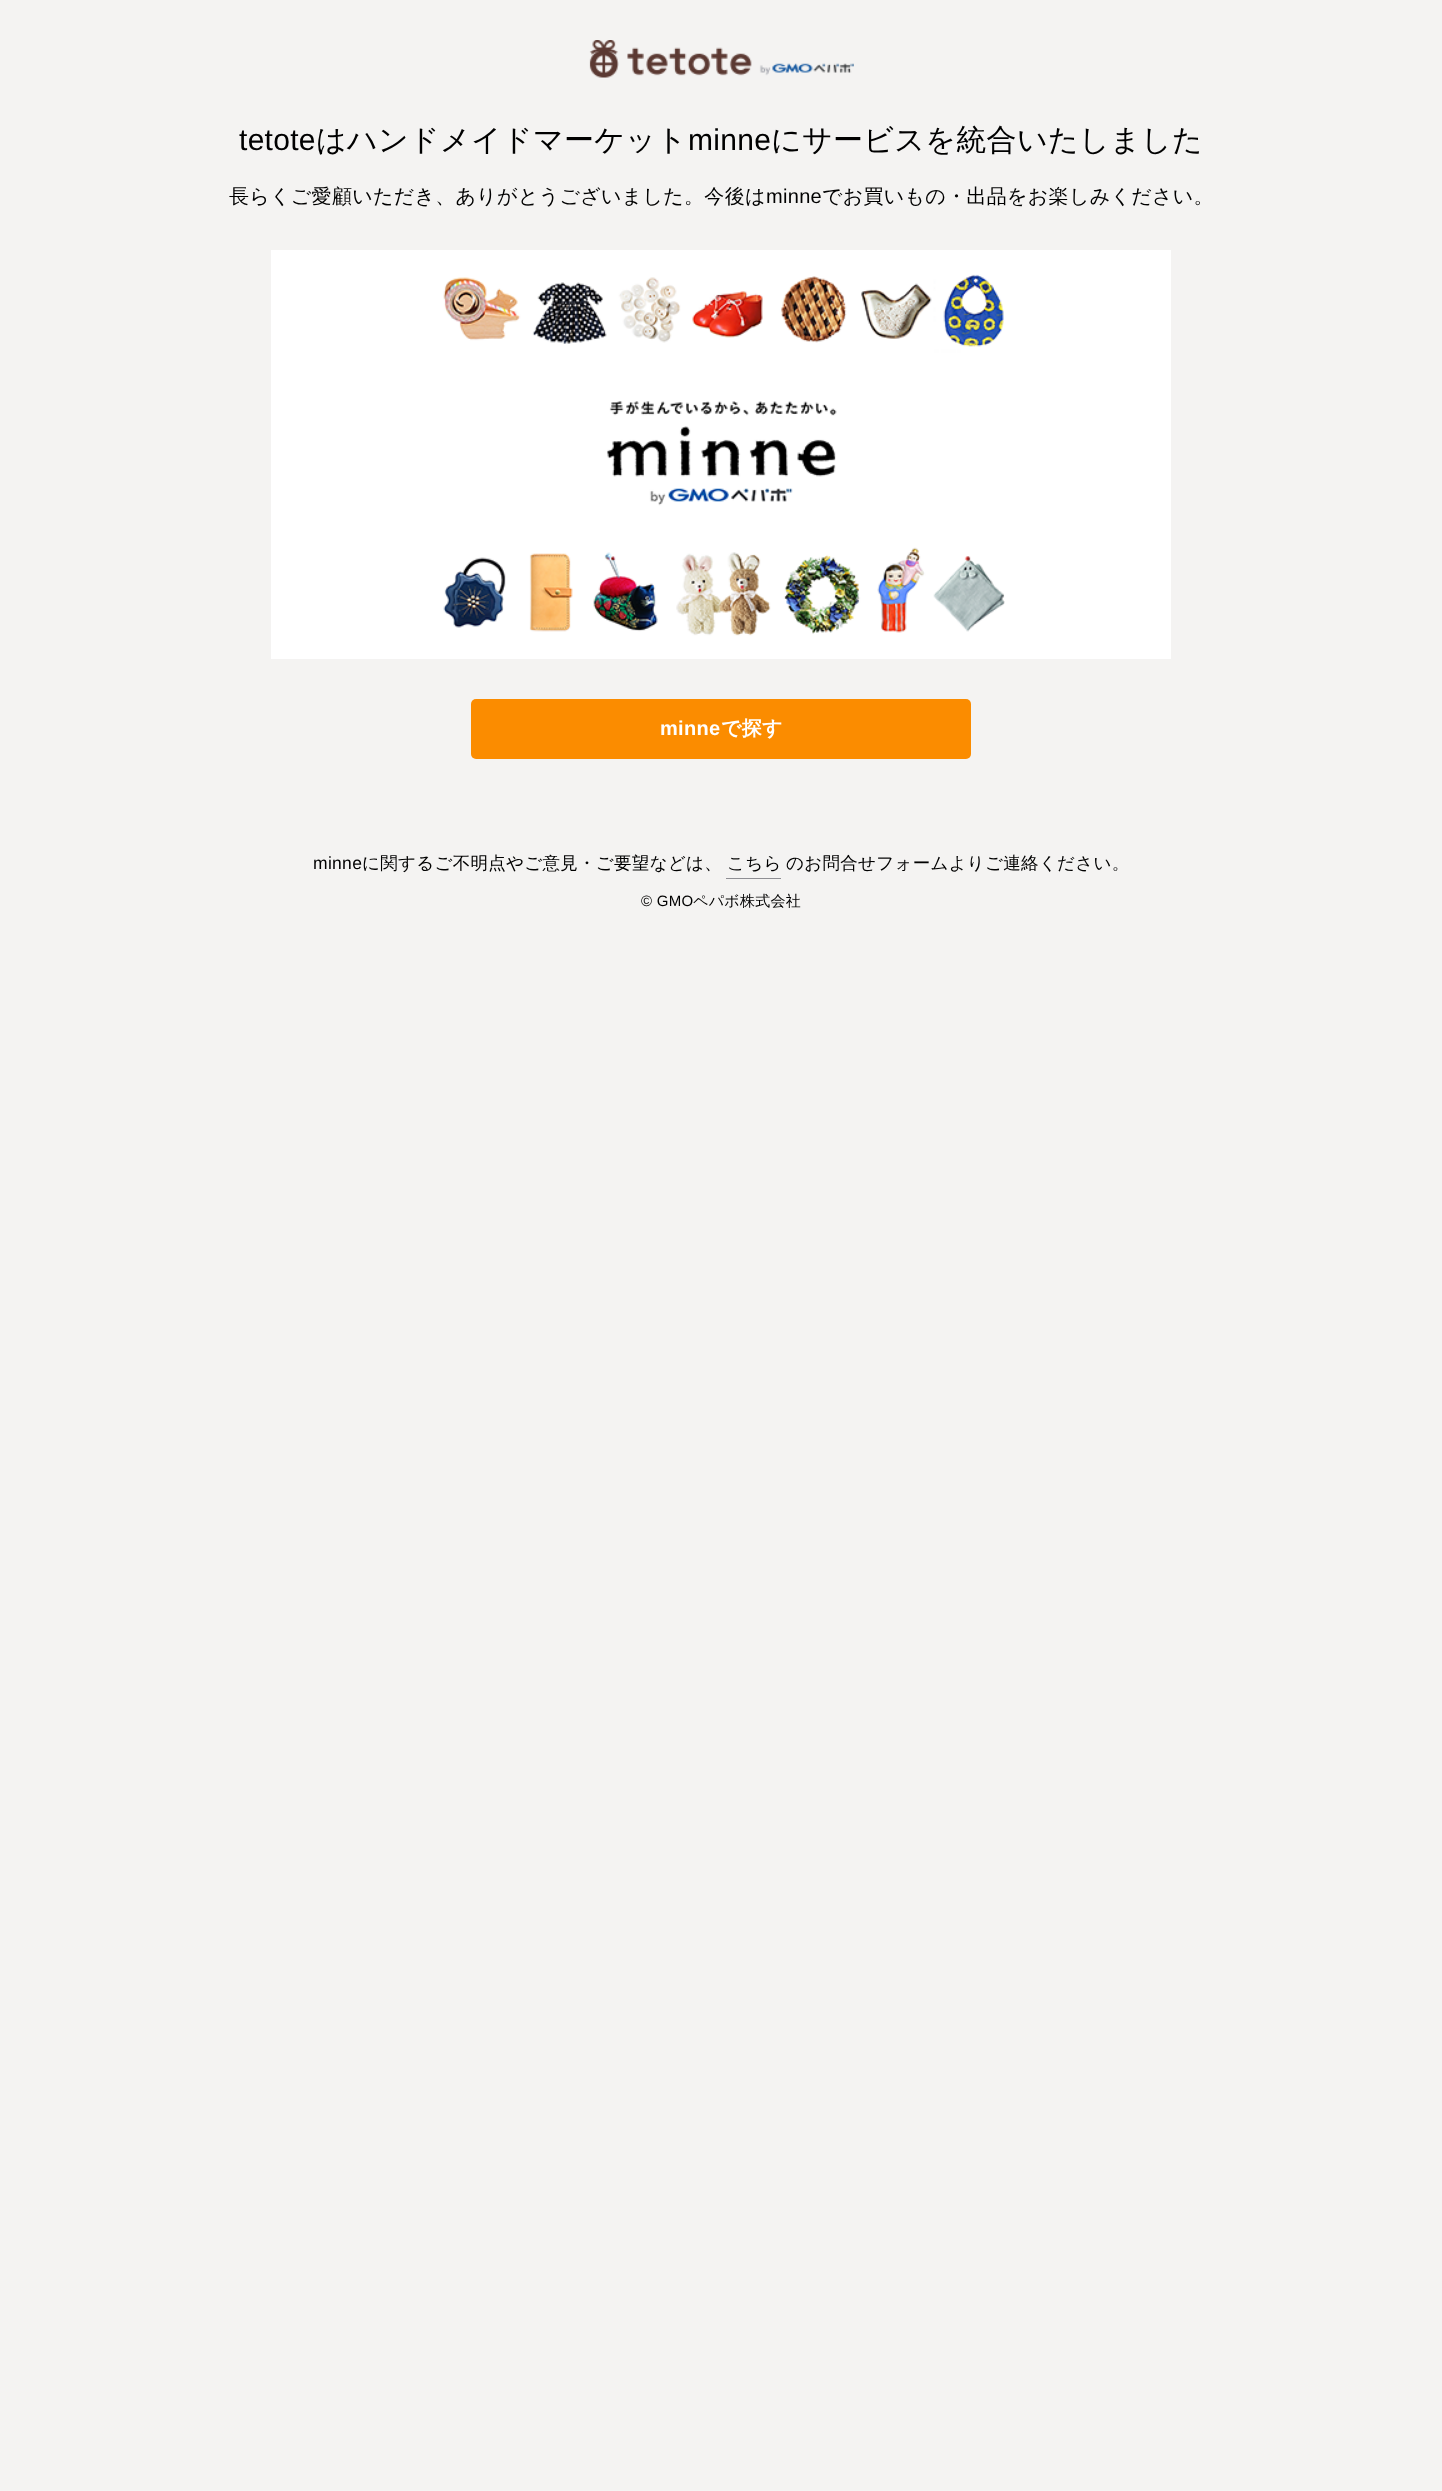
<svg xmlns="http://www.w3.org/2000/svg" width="1442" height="2491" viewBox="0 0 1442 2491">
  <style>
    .t1 { font: 30px Liberation Sans; letter-spacing: 0.3px; fill: #000; }
    .t2 { font: 500 30px WenQuanYi Zen Hei; letter-spacing: 0.3px; fill: #000; }
    .t3 { font: 500 20px WenQuanYi Zen Hei; letter-spacing: 0.3px; fill: #000; }
    .t4 { font: 20px Liberation Sans; letter-spacing: 0.3px; fill: #000; }
    .t5 { font: bold 20px Liberation Sans; letter-spacing: 0.3px; fill: #fff; }
    .t6 { font: bold 20px WenQuanYi Zen Hei; letter-spacing: 0.3px; fill: #fff; }
    .t7 { font: 17.5px Liberation Sans; letter-spacing: 0.3px; fill: #000; }
    .t8 { font: 500 17.5px WenQuanYi Zen Hei; letter-spacing: 0.3px; fill: #000; }
    .t9 { font: 15px Liberation Sans; letter-spacing: 0.3px; fill: #000; }
    .t10 { font: 500 15px WenQuanYi Zen Hei; letter-spacing: 0.3px; fill: #000; }
  </style>
  <rect width="100%" height="100%" fill="#f4f3f2"/>
  <image x="589" y="40" width="265" height="38" href="images/1.png"/>
  <text x="239" y="150" class="t1">tetote</text>
  <text x="316" y="150" class="t2">はハンドメイドマーケット</text>
  <text x="688" y="150" class="t1">minne</text>
  <text x="771" y="150" class="t2">にサービスを統合いたしました</text>
  <text x="229" y="203" class="t3">長らくご愛顧いただき、ありがとうございました。今後は</text>
  <text x="766" y="203" class="t4">minne</text>
  <text x="822" y="203" class="t3">でお買いもの・出品をお楽しみください。</text>
  <rect x="271" y="250" width="900" height="409" fill="#fff"/>
  <image x="443" y="274" width="562" height="362" href="images/2.png"/>
  <rect x="471" y="699" width="500" height="60" rx="5" fill="#fb8c00"/>
  <text x="660" y="735" class="t5">minne</text>
  <text x="721" y="735" class="t6">で探す</text>
  <text x="313" y="869" class="t7">minne</text>
  <text x="362" y="869" class="t8">に関するご不明点やご意見・ご要望などは、</text>
  <rect x="726" y="878" width="55" height="1" fill="#8e8e93"/>
  <text x="727" y="869" class="t8">こちら</text>
  <text x="786" y="869" class="t8">のお問合せフォームよりご連絡ください。</text>
  <text x="641" y="906" class="t9">© GMO</text>
  <text x="693" y="906" class="t10">ペパボ株式会社</text>
</svg>
